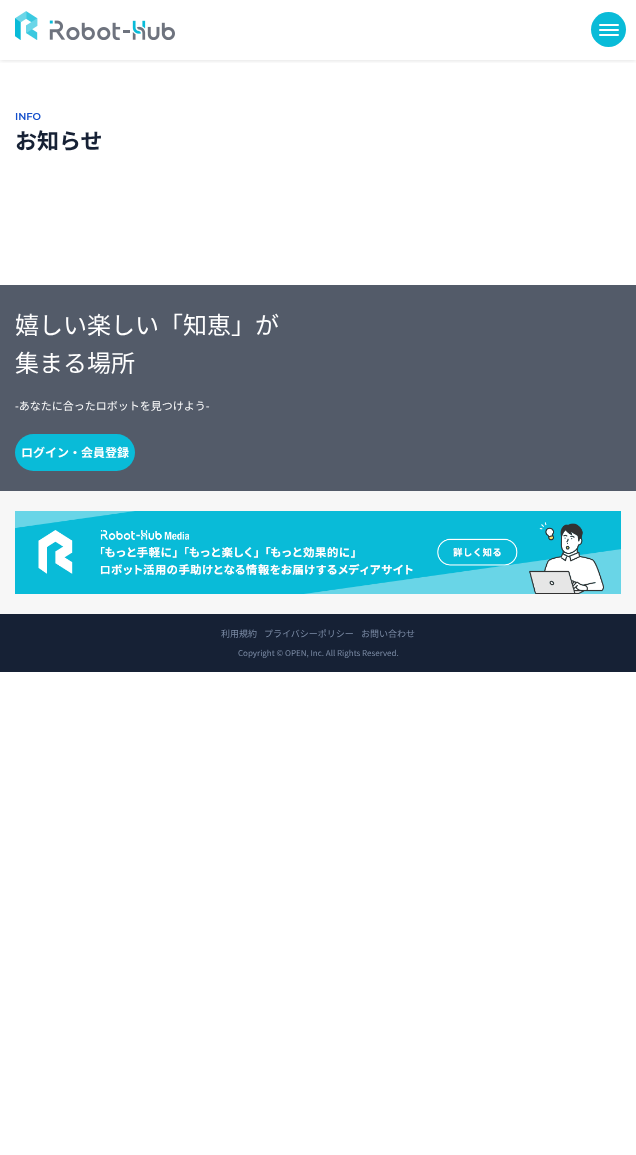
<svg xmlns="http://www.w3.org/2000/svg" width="636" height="1155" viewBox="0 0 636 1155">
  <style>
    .t1 { font: 600 10px Montserrat; fill: #134ecb; }
    .t2 { font: bold 22px Noto Sans JP; fill: #162135; }
    .t3 { font: 24px Noto Sans JP; fill: #fff; }
    .t4 { font: 11px Noto Sans JP; fill: #fff; }
    .t5 { font: bold 12px Noto Sans JP; fill: #fff; }
    .t6 { font: 9px Noto Sans JP; fill: #7d8da7; }
    .t7 { font: 8px Noto Sans JP; fill: #7d8da7; }
  </style>
  <defs>
    <clipPath id="clip1"><rect x="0" y="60" width="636" height="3"/></clipPath>
  </defs>
  <rect width="100%" height="100%" fill="#fff"/>
  <g clip-path="url(#clip1)">
    <rect x="0" y="0" width="636" height="60" fill="#00000026" filter="blur(2.5px)"/>
  </g>
  <image x="15" y="11" width="160" height="29" href="images/1.png"/>
  <circle cx="608.5" cy="29.5" r="17.5" fill="#09bbd8"/>
  <rect x="599" y="24" width="20" height="2" rx="1" fill="#fff"/>
  <rect x="599" y="29" width="20" height="2" rx="1" fill="#fff"/>
  <rect x="599" y="34" width="20" height="2" rx="1" fill="#fff"/>
  <text x="15" y="120" class="t1">INFO</text>
  <text x="15" y="149" class="t2">お知らせ</text>
  <rect x="0" y="285" width="636" height="206" fill="#535b69"/>
  <text x="15" y="334" class="t3">嬉しい楽しい「知恵」が</text>
  <text x="15" y="372" class="t3">集まる場所</text>
  <text x="15" y="410" class="t4">-あなたに合ったロボットを見つけよう-</text>
  <rect x="15" y="434" width="120" height="37" rx="18.5" fill="#09bbd8"/>
  <text x="21" y="457" class="t5">ログイン・会員登録</text>
  <rect x="0" y="491" width="636" height="123" fill="#f7f7f7"/>
  <image x="15" y="511" width="606" height="83" href="images/2.png"/>
  <rect x="0" y="614" width="636" height="58" fill="#162135"/>
  <text x="221" y="637" class="t6">利用規約</text>
  <text x="264" y="637" class="t6">プライバシーポリシー</text>
  <text x="361" y="637" class="t6">お問い合わせ</text>
  <text x="238" y="656" class="t7">Copyright © OPEN, Inc. All Rights Reserved.</text>
</svg>
